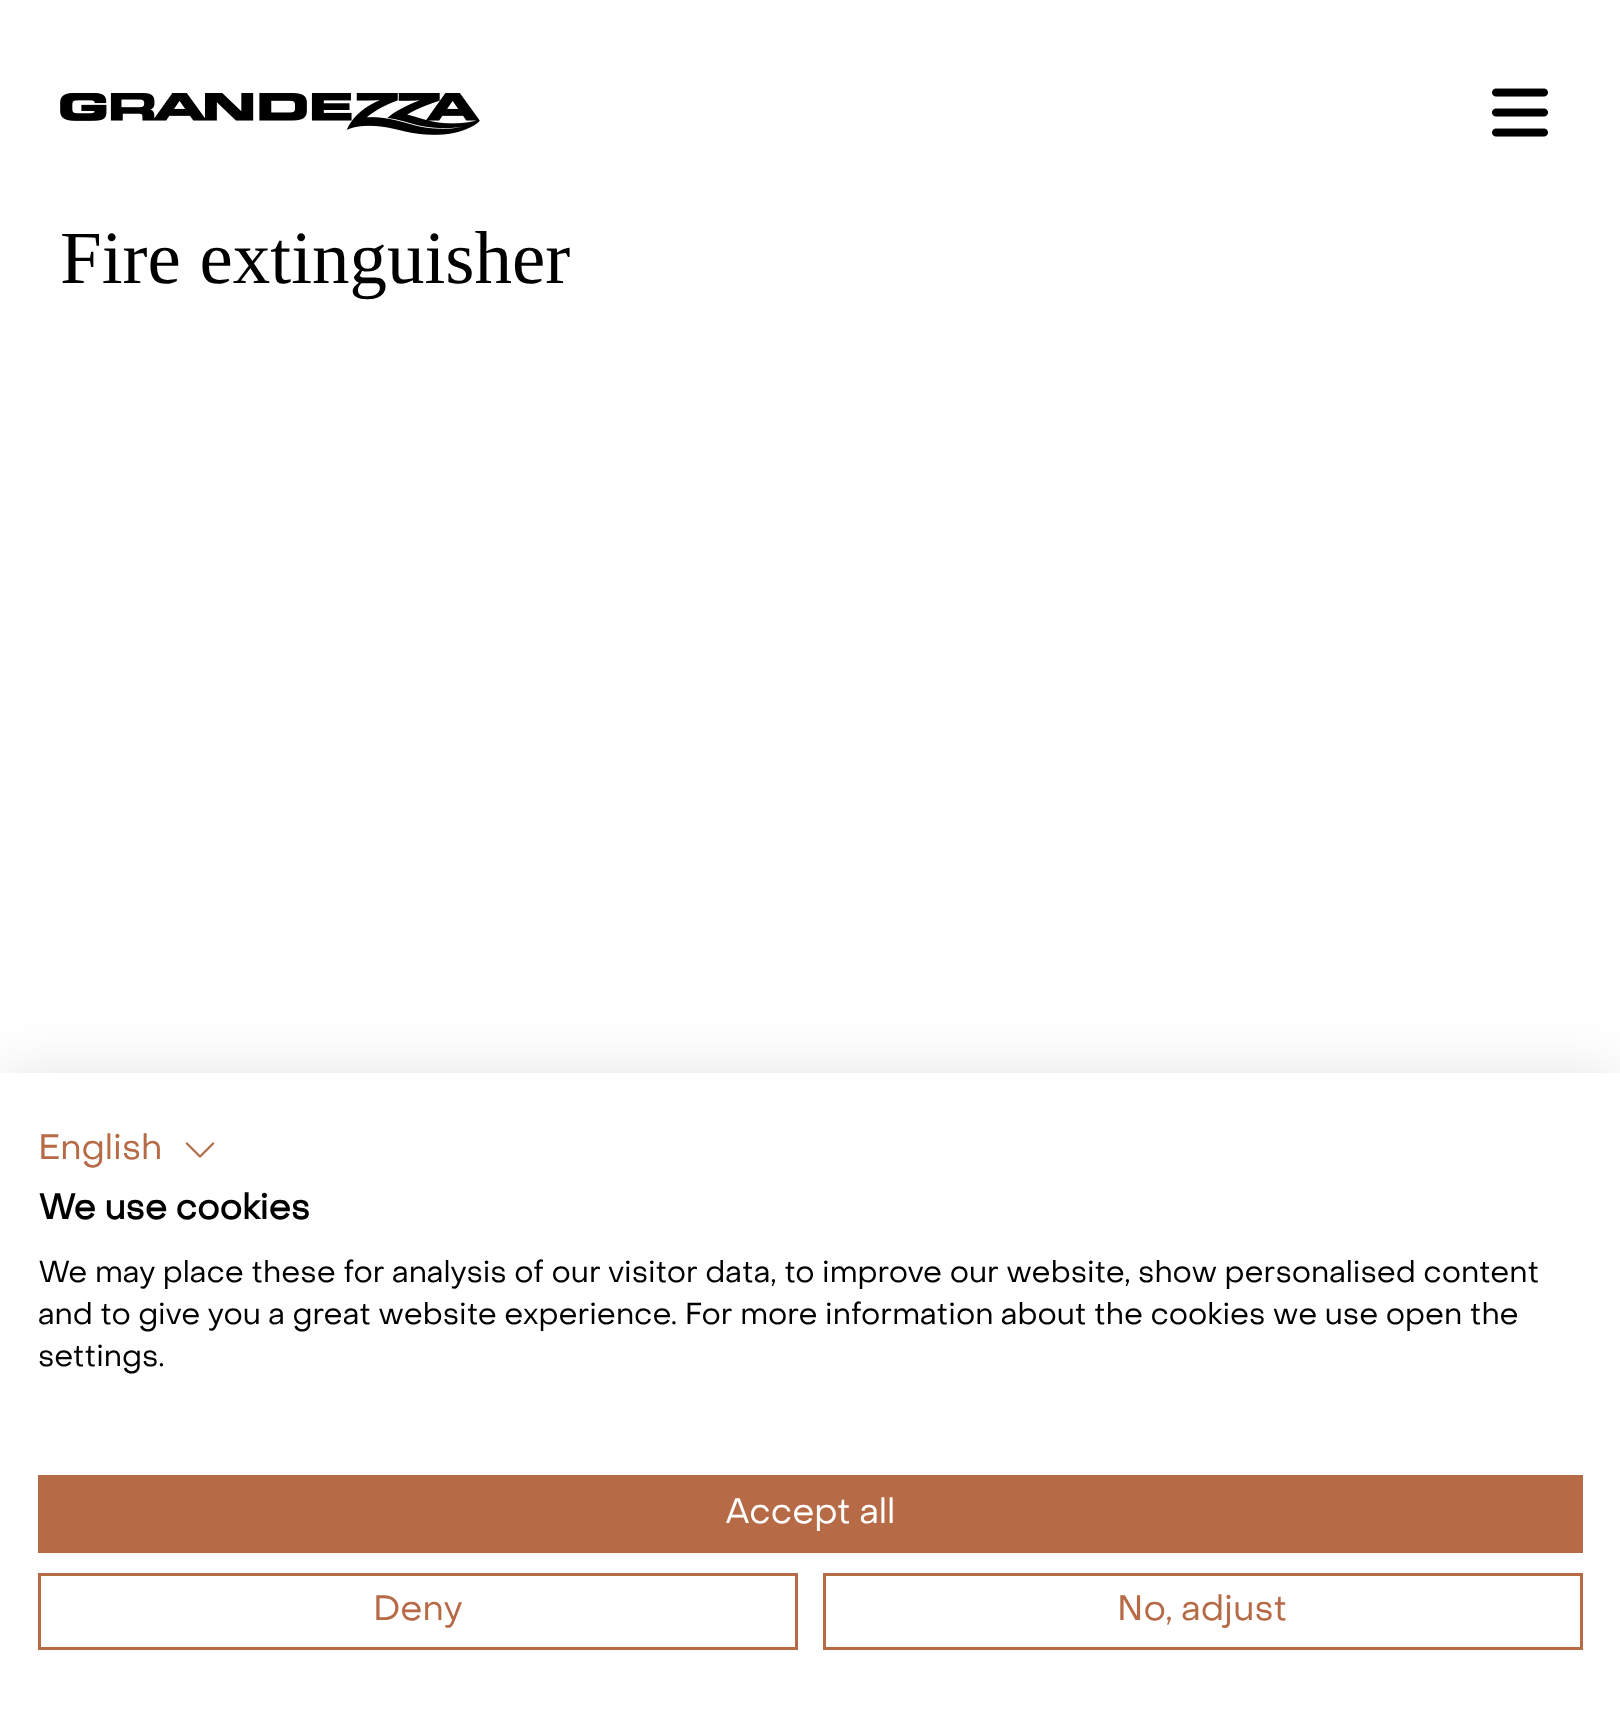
<svg xmlns="http://www.w3.org/2000/svg" width="1620" height="1717" viewBox="0 0 1620 1717">
  <style>
    .t1 { font: 75px Liberation Serif; fill: #000; }
    .t2 { font: 35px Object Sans; fill: #b66a46; }
    .t3 { font: bold 35px Object Sans; fill: #000; }
    .t4 { font: 30px Object Sans; fill: #000; }
    .t5 { font: 35px Object Sans; fill: #fff; }
  </style>
  <rect width="100%" height="100%" fill="#fff"/>
  <image x="60" y="93" width="420" height="42" href="images/1.png"/>
  <image x="1492" y="88" width="56" height="49" href="images/2.png"/>
  <text x="60" y="283" class="t1">Fire extinguisher</text>
  <rect x="0" y="1073" width="1620" height="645" fill="#0000001a" filter="blur(30px)"/>
  <rect x="0" y="1073" width="1620" height="644" fill="#fff"/>
  <text x="38" y="1159" class="t2">English</text>
  <image x="185" y="1142" width="30" height="16" href="images/3.png"/>
  <text x="38" y="1219" class="t3">We use cookies</text>
  <text x="38" y="1282" class="t4">We may place these for analysis of our visitor data, to improve our website, show personalised content</text>
  <text x="38" y="1324" class="t4">and to give you a great website experience. For more information about the cookies we use open the</text>
  <text x="38" y="1366" class="t4">settings.</text>
  <rect x="38" y="1475" width="1545" height="78" fill="#b66a46"/>
  <text x="725" y="1523" class="t5">Accept all</text>
  <rect x="39.5" y="1574.5" width="757" height="74" fill="none" stroke="#b66a46" stroke-width="3"/>
  <text x="373" y="1620" class="t2">Deny</text>
  <rect x="824.5" y="1574.5" width="757" height="74" fill="none" stroke="#b66a46" stroke-width="3"/>
  <text x="1117" y="1620" class="t2">No, adjust</text>
</svg>
